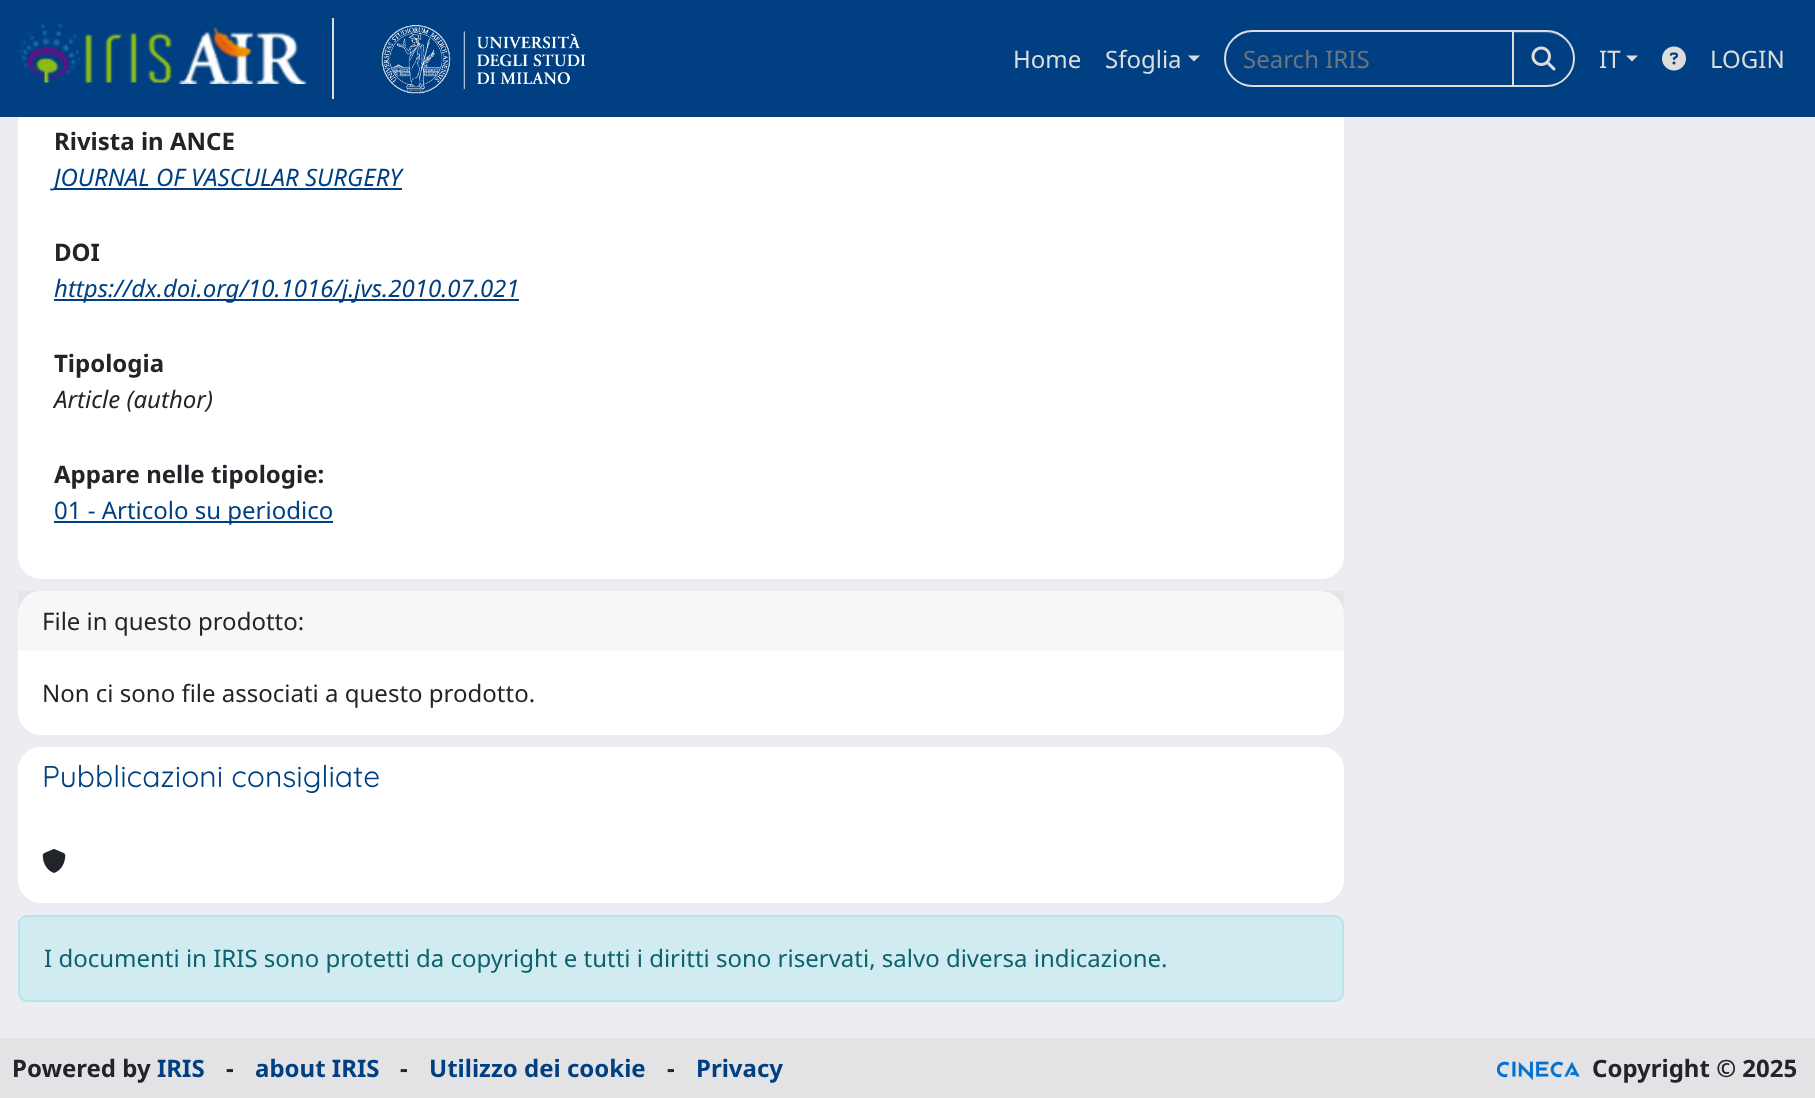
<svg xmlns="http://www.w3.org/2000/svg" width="1815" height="1098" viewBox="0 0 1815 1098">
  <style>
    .t1 { font: 24px Noto Sans; fill: #ddd; }
    .t2 { font: 24px Noto Sans; fill: #6c757d; }
    .t3 { font: bold 24px Noto Sans; fill: #212529; }
    .t4 { font: italic 24px Noto Sans; fill: #004082; }
    .t5 { font: italic 24px Noto Sans; fill: #212529; }
    .t6 { font: 24px Noto Sans; fill: #004082; }
    .t7 { font: 24px Noto Sans; fill: #212529; }
    .t8 { font: 30px Quicksand; fill: #004082; }
    .t9 { font: 24px Noto Sans; fill: #0e616e; }
    .t10 { font: bold 24px Noto Sans; fill: #004082; }
  </style>
  <rect width="100%" height="100%" fill="#ecedf2"/>
  <rect x="18" y="-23" width="1326" height="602" rx="23" fill="#fff"/>
  <rect x="0" y="0" width="1815" height="117" fill="#004082"/>
  <rect x="332" y="18" width="2" height="81" fill="#ddd"/>
  <image x="19" y="24" width="289" height="60" href="images/1.png"/>
  <image x="381" y="25" width="205" height="69" href="images/2.png"/>
  <text x="1013" y="68" class="t1">Home</text>
  <text x="1105" y="68" class="t1">Sfoglia</text>
  <path d="M1188 55.5H1200L1194 61.5Z" fill="#ddd"/>
  <path d="M1252.5 31H1513V86H1252.5C1237.5 86 1225 73.5 1225 58.5C1225 43.5 1237.5 31 1252.5 31Z" fill="none" stroke="#ddd" stroke-width="2"/>
  <text x="1243" y="68" class="t2">Search IRIS</text>
  <rect x="1512" y="32" width="63" height="57" rx="28.5" fill="#00000012" filter="blur(1px)"/>
  <path d="M1512 30H1546.5C1562 30 1575 43 1575 58.5C1575 74 1562 87 1546.5 87H1512Z" fill="#004082"/>
  <path d="M1514 33H1546C1561 33 1574 45 1574 60V59C1574 44 1562 32 1547 32H1514Z" fill="#265d95"/>
  <path d="M1513 31H1546.5C1561.5 31 1574 43.5 1574 58.5C1574 73.5 1561.5 86 1546.5 86H1513Z" fill="none" stroke="#ddd" stroke-width="2"/>
  <image x="1531" y="46" width="25" height="25" href="images/3.png"/>
  <text x="1599" y="68" class="t1">IT</text>
  <path d="M1626 55.5H1638L1632 61.5Z" fill="#ddd"/>
  <image x="1662" y="46" width="24" height="25" href="images/4.png"/>
  <text x="1710" y="68" class="t1">LOGIN</text>
  <text x="54" y="150" class="t3">Rivista in ANCE</text>
  <rect x="54" y="188" width="348" height="2" fill="#004082"/>
  <text x="54" y="186" class="t4">JOURNAL OF VASCULAR SURGERY</text>
  <text x="54" y="261" class="t3">DOI</text>
  <rect x="54" y="299" width="465" height="2" fill="#004082"/>
  <text x="54" y="297" class="t4">https://dx.doi.org/10.1016/j.jvs.2010.07.021</text>
  <text x="54" y="372" class="t3">Tipologia</text>
  <text x="54" y="408" class="t5">Article (author)</text>
  <text x="54" y="483" class="t3">Appare nelle tipologie:</text>
  <rect x="54" y="521" width="279" height="2" fill="#004082"/>
  <text x="54" y="519" class="t6">01 - Articolo su periodico</text>
  <rect x="18" y="591" width="1326" height="144" rx="23" fill="#fff"/>
  <rect x="18" y="591" width="1326" height="60" fill="#00000008"/>
  <text x="42" y="630" class="t7">File in questo prodotto:</text>
  <text x="42" y="702" class="t7">Non ci sono file associati a questo prodotto.</text>
  <rect x="18" y="747" width="1326" height="156" rx="23" fill="#fff"/>
  <path d="M41 747H1321C1333.5 747 1344 757.5 1344 770V819H18V770C18 757.5 28.5 747 41 747Z" fill="#fff"/>
  <text x="42" y="787" class="t8">Pubblicazioni consigliate</text>
  <image x="42" y="849" width="24" height="24" href="images/5.png"/>
  <rect x="19" y="916" width="1324" height="85" rx="8" fill="#d1ecf1" stroke="#b9e3ea" stroke-width="2"/>
  <text x="44" y="967" class="t9">I documenti in IRIS sono protetti da copyright e tutti i diritti sono riservati, salvo diversa indicazione.</text>
  <rect x="0" y="1038" width="1815" height="60" fill="#e3e3e5"/>
  <text x="12" y="1077" class="t3">Powered by</text>
  <text x="157" y="1077" class="t10">IRIS</text>
  <text x="226" y="1077" class="t3">-</text>
  <text x="255" y="1077" class="t10">about IRIS</text>
  <text x="400" y="1077" class="t3">-</text>
  <text x="429" y="1077" class="t10">Utilizzo dei cookie</text>
  <text x="667" y="1077" class="t3">-</text>
  <text x="696" y="1077" class="t10">Privacy</text>
  <image x="1497" y="1061" width="83" height="19" href="images/6.png"/>
  <text x="1592" y="1077" class="t3">Copyright © 2025</text>
</svg>
